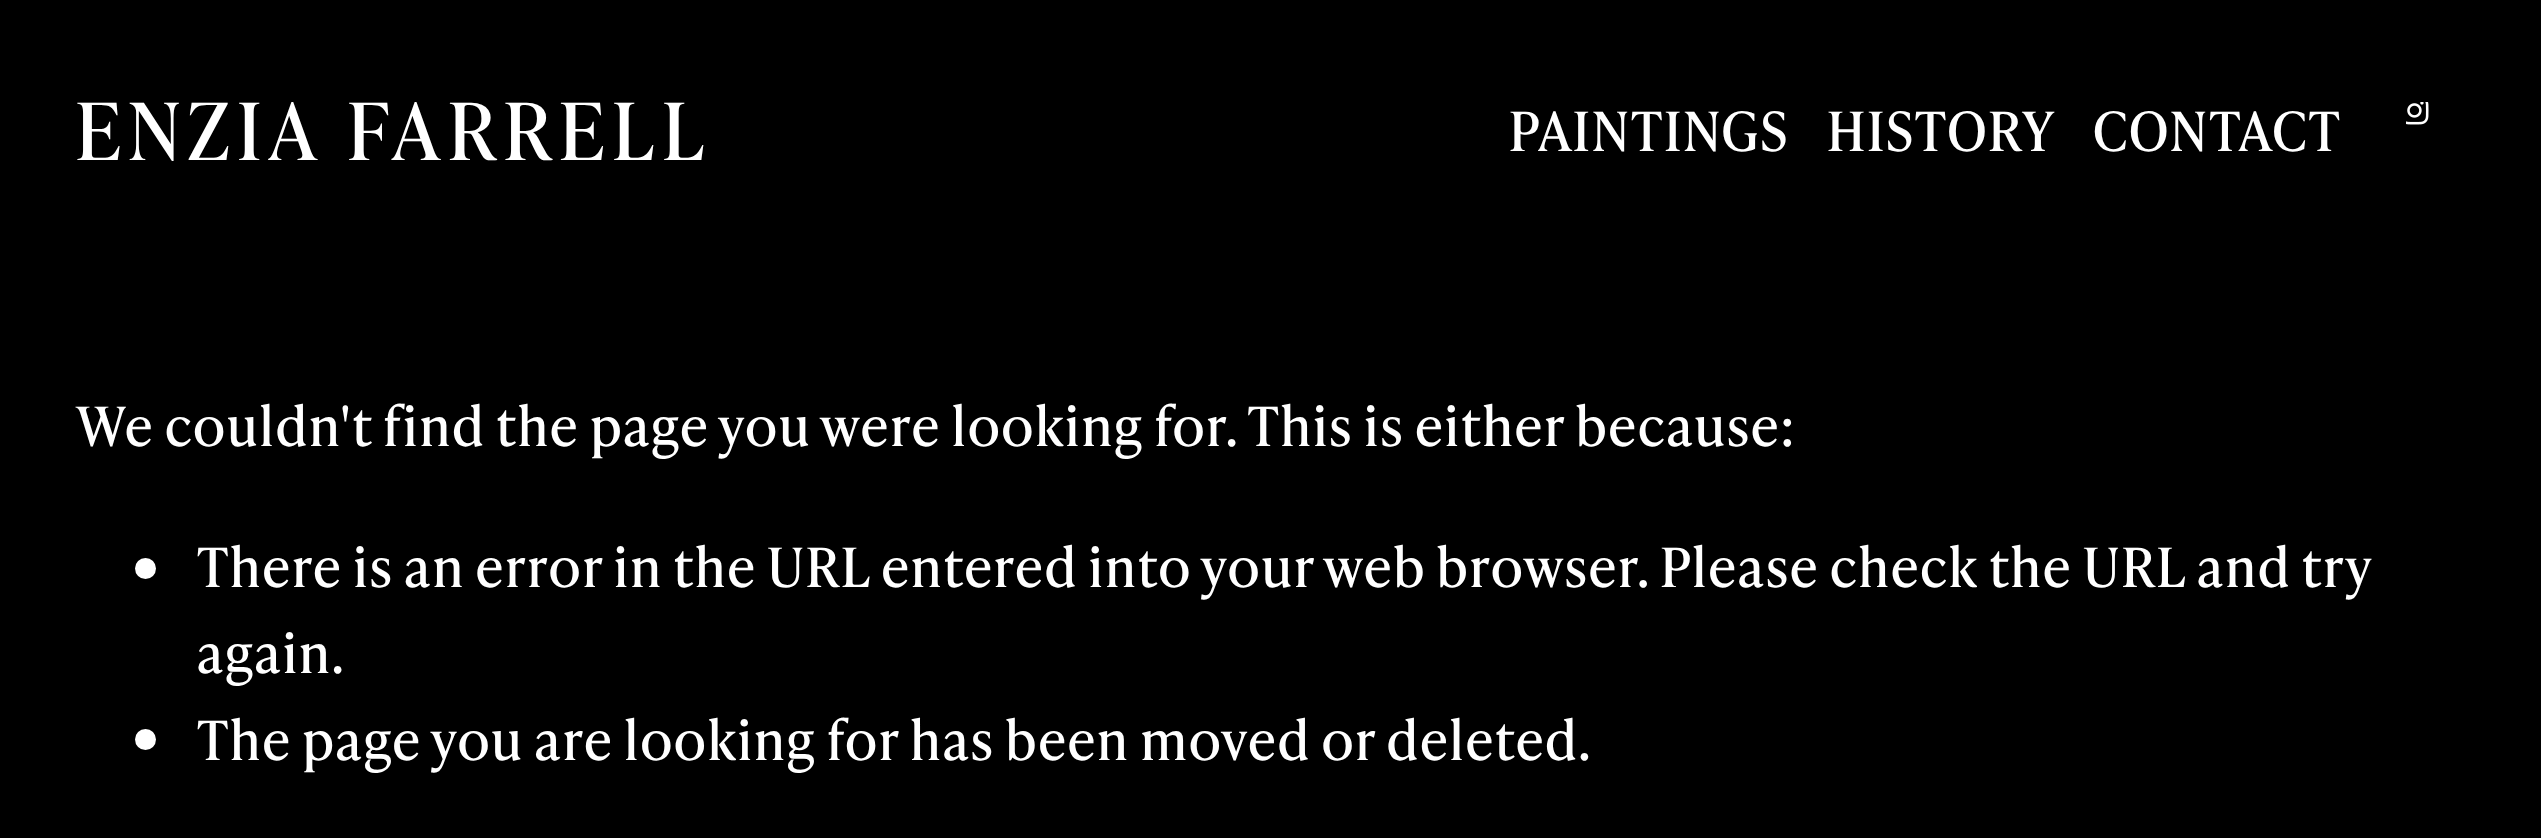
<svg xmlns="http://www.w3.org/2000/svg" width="2541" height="838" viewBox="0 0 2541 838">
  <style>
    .t1 { font: 78.5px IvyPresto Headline; letter-spacing: 8.6px; fill: #fff; }
    .t2 { font: 54.1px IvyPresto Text; fill: #fff; }
  </style>
  <rect width="100%" height="100%" fill="#000"/>
  <text x="76" y="160" class="t1">ENZIA FARRELL</text>
  <text x="1508" y="151" class="t2">PAINTINGS</text>
  <text x="1826" y="151" class="t2">HISTORY</text>
  <text x="2092" y="151" class="t2">CONTACT</text>
  <image x="2406" y="102" width="23" height="23" href="images/1.png"/>
  <text x="76" y="446" word-spacing="-0.1" class="t2">We couldn't find the page you were looking for. This is either because:</text>
  <circle cx="145.5" cy="568.5" r="10.5" fill="#fff"/>
  <text x="196" y="587" word-spacing="-0.25" class="t2">There is an error in the URL entered into your web browser. Please check the URL and try</text>
  <text x="196" y="673" class="t2">again.</text>
  <circle cx="145.5" cy="739.5" r="10.5" fill="#fff"/>
  <text x="196" y="760" word-spacing="-0.1" class="t2">The page you are looking for has been moved or deleted.</text>
</svg>
